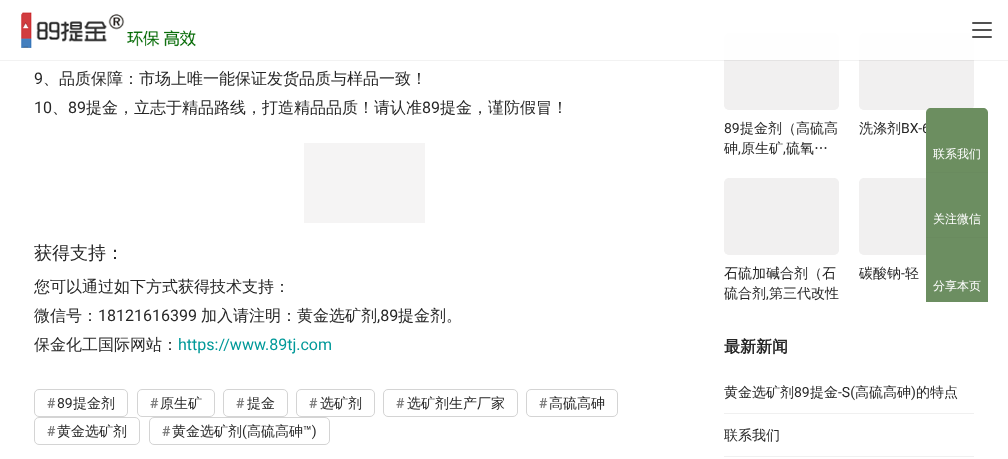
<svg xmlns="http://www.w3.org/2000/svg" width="1008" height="459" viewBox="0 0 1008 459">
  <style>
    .t1 { font: 16px Roboto; fill: #262626; }
    .t2 { font: 500 16px WenQuanYi Zen Hei; fill: #262626; }
    .t3 { font: 500 18px WenQuanYi Zen Hei; fill: #262626; }
    .t4 { font: 16px Roboto; fill: #099; }
    .t5 { font: 600 14px Roboto; fill: #7d7d7d; }
    .t6 { font: 14px Roboto; fill: #262626; }
    .t7 { font: 500 14px WenQuanYi Zen Hei; fill: #262626; }
    .t8 { font: bold 16px WenQuanYi Zen Hei; fill: #262626; }
    .t9 { font: 500 12px WenQuanYi Zen Hei; fill: #fff; }
  </style>
  <defs>
    <clipPath id="clip1"><rect x="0" y="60" width="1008" height="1"/></clipPath>
  </defs>
  <rect width="100%" height="100%" fill="#fff"/>
  <rect x="724" y="33" width="115" height="77" rx="5" fill="#f9f9f9"/>
  <image x="724" y="33" width="115" height="77" href="images/2.png"/>
  <rect x="859" y="33" width="115" height="77" rx="5" fill="#f9f9f9"/>
  <image x="859" y="33" width="115" height="77" href="images/3.png"/>
  <g clip-path="url(#clip1)">
    <rect x="0" y="1" width="1008" height="60" fill="#2626260f" filter="blur(0.5px)"/>
  </g>
  <image x="21" y="12" width="175" height="36" href="images/1.png"/>
  <rect x="972" y="22" width="20" height="2" rx="1" fill="#515151"/>
  <rect x="972" y="29" width="20" height="2" rx="1" fill="#515151"/>
  <rect x="724" y="33" width="250" height="27" fill="#ffffffeb"/>
  <rect x="972" y="36" width="20" height="2" rx="1" fill="#515151"/>
  <text x="34" y="84" class="t1">9</text>
  <text x="43" y="84" class="t2">、品质保障：市场上唯一能保证发货品质与样品一致！</text>
  <text x="34" y="113" class="t1">10</text>
  <text x="52" y="113" class="t2">、</text>
  <text x="68" y="113" class="t1">89</text>
  <text x="86" y="113" class="t2">提金，立志于精品路线，打造精品品质！请认准</text>
  <text x="422" y="113" class="t1">89</text>
  <text x="440" y="113" class="t2">提金，谨防假冒！</text>
  <rect x="304" y="143" width="121" height="80" fill="#f5f4f4"/>
  <text x="34" y="259" class="t3">获得支持：</text>
  <text x="34" y="292" class="t2">您可以通过如下方式获得技术支持：</text>
  <text x="34" y="321" class="t2">微信号：</text>
  <text x="98" y="321" class="t1">18121616399</text>
  <text x="201" y="321" class="t2">加入请注明：黄金选矿剂</text>
  <text x="377" y="321" class="t1">,89</text>
  <text x="398" y="321" class="t2">提金剂。</text>
  <text x="34" y="350" class="t2">保金化工国际网站：</text>
  <text x="178" y="350" class="t4">https://www.89tj.com</text>
  <rect x="34.5" y="389.5" width="93" height="27" rx="4.5" fill="none" stroke="#d4d4d4"/>
  <text x="47" y="408" class="t5">#</text>
  <text x="57" y="408" class="t6">89</text>
  <text x="73" y="408" class="t7">提金剂</text>
  <rect x="137.5" y="389.5" width="77" height="27" rx="4.5" fill="none" stroke="#d4d4d4"/>
  <text x="150" y="408" class="t5">#</text>
  <text x="160" y="408" class="t7">原生矿</text>
  <rect x="223.5" y="389.5" width="64" height="27" rx="4.5" fill="none" stroke="#d4d4d4"/>
  <text x="236" y="408" class="t5">#</text>
  <text x="247" y="408" class="t7">提金</text>
  <rect x="296.5" y="389.5" width="78" height="27" rx="4.5" fill="none" stroke="#d4d4d4"/>
  <text x="309" y="408" class="t5">#</text>
  <text x="320" y="408" class="t7">选矿剂</text>
  <rect x="383.5" y="389.5" width="134" height="27" rx="4.5" fill="none" stroke="#d4d4d4"/>
  <text x="396" y="408" class="t5">#</text>
  <text x="407" y="408" class="t7">选矿剂生产厂家</text>
  <rect x="526.5" y="389.5" width="91" height="27" rx="4.5" fill="none" stroke="#d4d4d4"/>
  <text x="539" y="408" class="t5">#</text>
  <text x="549" y="408" class="t7">高硫高砷</text>
  <rect x="34.5" y="417.5" width="105" height="27" rx="4.5" fill="none" stroke="#d4d4d4"/>
  <text x="47" y="436" class="t5">#</text>
  <text x="57" y="436" class="t7">黄金选矿剂</text>
  <rect x="149.5" y="417.5" width="180" height="27" rx="4.5" fill="none" stroke="#d4d4d4"/>
  <text x="162" y="436" class="t5">#</text>
  <text x="172" y="436" class="t7">黄金选矿剂</text>
  <text x="242" y="436" class="t6">(</text>
  <text x="247" y="436" class="t7">高硫高砷</text>
  <text x="303" y="436" class="t6">™)</text>
  <text x="724" y="133" class="t6">89</text>
  <text x="740" y="133" class="t7">提金剂（高硫高</text>
  <text x="724" y="153" class="t7">砷</text>
  <text x="738" y="153" class="t6">,</text>
  <text x="741" y="153" class="t7">原生矿</text>
  <text x="783" y="153" class="t6">,</text>
  <text x="786" y="153" class="t7">硫氧…</text>
  <text x="859" y="133" class="t7">洗涤剂</text>
  <text x="901" y="133" class="t6">BX-6</text>
  <rect x="724" y="178" width="115" height="77" rx="5" fill="#f9f9f9"/>
  <image x="724" y="178" width="115" height="77" href="images/2.png"/>
  <text x="724" y="278" class="t7">石硫加碱合剂（石</text>
  <text x="724" y="298" class="t7">硫合剂</text>
  <text x="766" y="298" class="t6">,</text>
  <text x="769" y="298" class="t7">第三代改性</text>
  <rect x="859" y="178" width="115" height="77" rx="5" fill="#f9f9f9"/>
  <image x="859" y="178" width="67" height="77" href="images/4.png"/>
  <text x="859" y="278" class="t7">碳酸钠</text>
  <text x="901" y="278" class="t6">-</text>
  <text x="905" y="278" class="t7">轻</text>
  <text x="724" y="352" class="t8">最新新闻</text>
  <rect x="724" y="413" width="250" height="1" fill="#f0f0f0"/>
  <text x="724" y="397" class="t7">黄金选矿剂</text>
  <text x="794" y="397" class="t6">89</text>
  <text x="810" y="397" class="t7">提金</text>
  <text x="838" y="397" class="t6">-S(</text>
  <text x="855" y="397" class="t7">高硫高砷</text>
  <text x="911" y="397" class="t6">)</text>
  <text x="916" y="397" class="t7">的特点</text>
  <rect x="724" y="456" width="250" height="1" fill="#f0f0f0"/>
  <text x="724" y="440" class="t7">联系我们</text>
  <path d="M931 108H983C986 108 988 110 988 113V172H926V113C926 110 928 108 931 108Z" fill="#719665"/>
  <path d="M931 108H983C986 108 988 110 988 113V172H926V113C926 110 928 108 931 108Z" fill="#26262612"/>
  <text x="933" y="158" class="t9">联系我们</text>
  <rect x="926" y="172" width="62" height="1" fill="#6a8b5f"/>
  <rect x="926" y="173" width="62" height="64" fill="#6c8e61"/>
  <text x="933" y="223" class="t9">关注微信</text>
  <rect x="926" y="237" width="62" height="1" fill="#6a8b5f"/>
  <rect x="926" y="238" width="62" height="64" fill="#6c8e61"/>
  <text x="933" y="290" class="t9">分享本页</text>
</svg>
